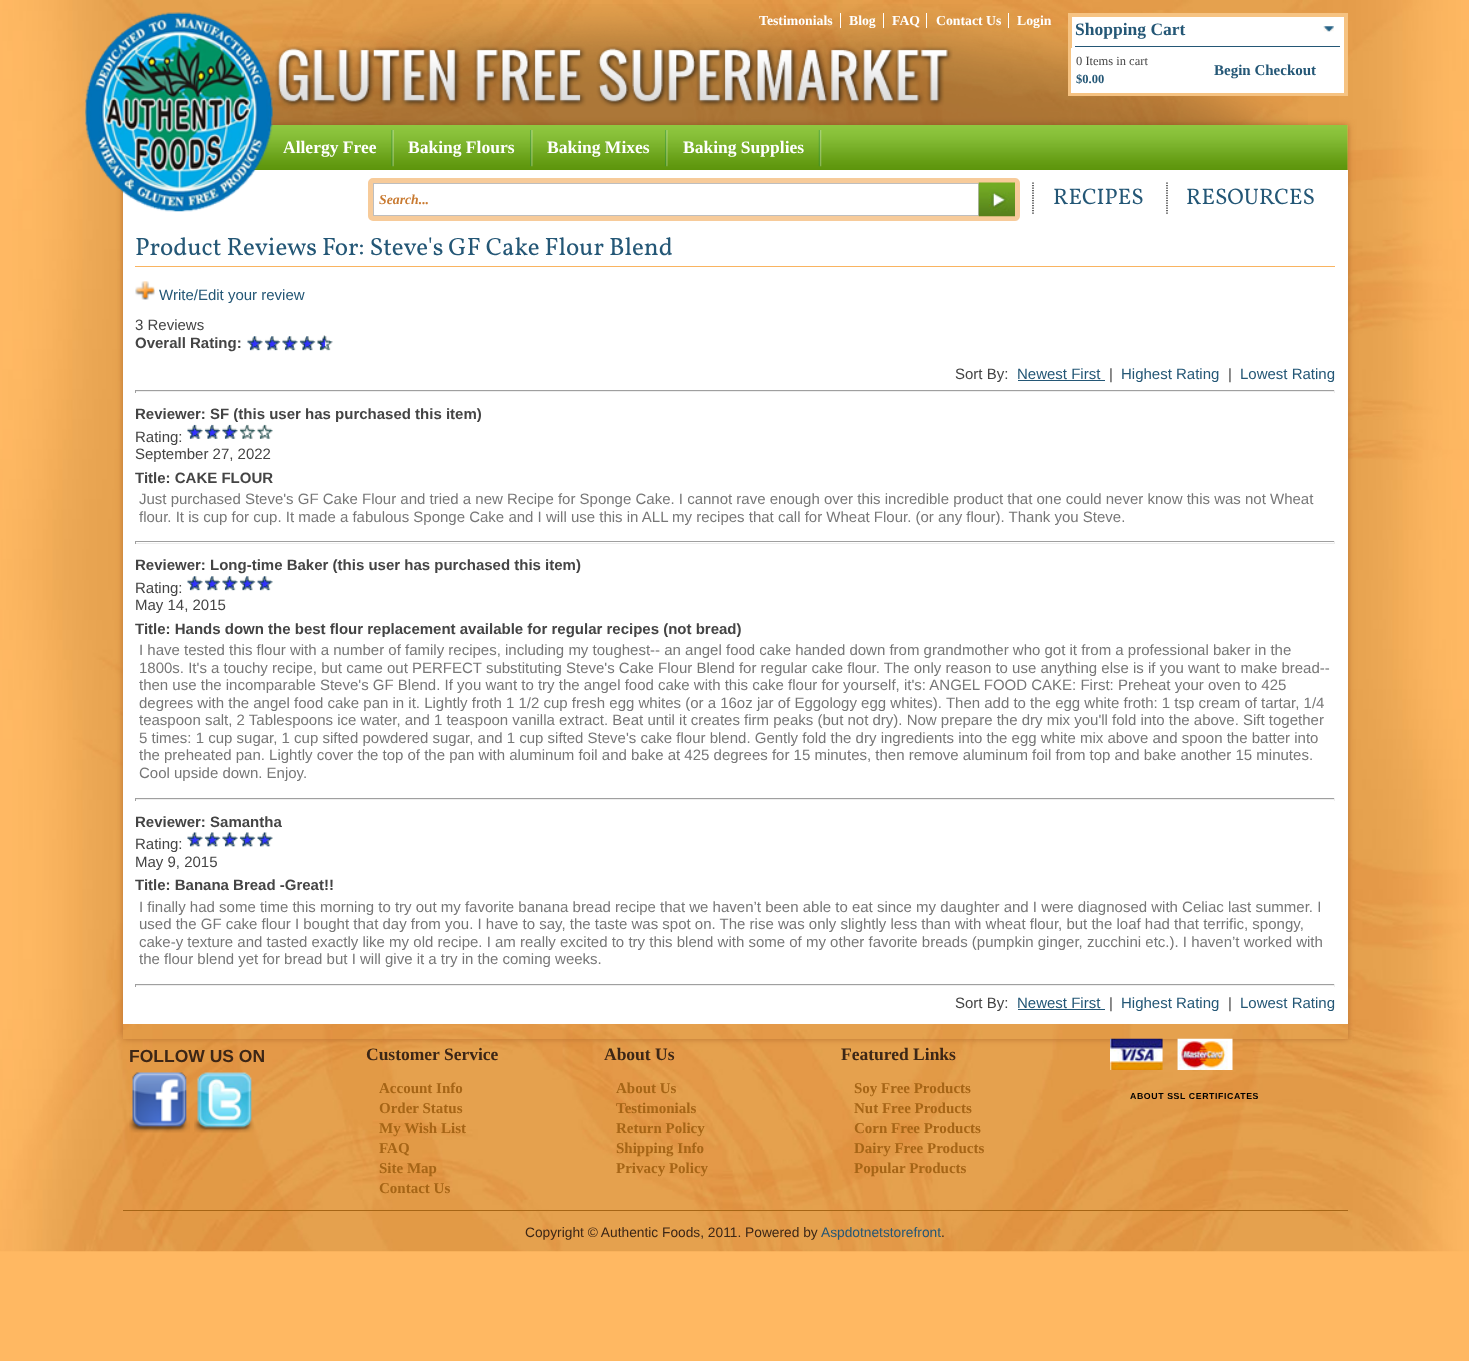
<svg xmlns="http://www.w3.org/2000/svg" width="1469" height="1361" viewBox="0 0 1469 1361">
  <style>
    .t1 { font: bold 13.75px Liberation Serif; fill: #fff; }
    .t2 { font: bold 17.5px Liberation Serif; fill: #245776; }
    .t3 { font: 12.5px Liberation Serif; fill: #444; }
    .t4 { font: bold 12.5px Liberation Serif; fill: #245776; }
    .t5 { font: bold 15px Liberation Serif; fill: #245776; }
    .t6 { font: bold 17.5px Liberation Serif; fill: #fff; }
    .t7 { font: italic bold 13.75px Liberation Serif; fill: #c97b32; }
    .t8 { font: 22.5px Vollkorn; fill: #245776; }
    .t9 { font: 25px Vollkorn; fill: #245776; }
    .t10 { font: 15px Liberation Sans; fill: #245776; }
    .t11 { font: 15px Liberation Sans; fill: #444; }
    .t12 { font: bold 15px Liberation Sans; fill: #444; }
    .t13 { font: 15px Liberation Sans; fill: #777; }
    .t14 { font: bold 17.5px Liberation Sans; fill: #3c2616; }
    .t15 { font: bold 17.5px Liberation Serif; fill: #3c2616; }
    .t16 { font: bold 15px Liberation Serif; fill: #a66516; }
    .t17 { font: bold 8.75px Liberation Sans; letter-spacing: 0.6px; fill: #000; }
    .t18 { font: 13.75px Liberation Sans; fill: #3c2616; }
    .t19 { font: 13.75px Liberation Sans; fill: #245776; }
  </style>
  <defs>
    <clipPath id="clip1"><path d="M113 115H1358V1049H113ZM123 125H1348V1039H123Z" clip-rule="evenodd"/></clipPath>
  </defs>
  <rect width="100%" height="100%" fill="#ffb862"/>
  <image x="0" y="0" width="1469" height="1252" href="images/1.png"/>
  <g clip-path="url(#clip1)">
    <rect x="123" y="125" width="1225" height="914" fill="#b97231" filter="blur(3px)"/>
  </g>
  <image x="252" y="4" width="1056" height="121" href="images/2.png"/>
  <image x="253" y="125" width="1095" height="45" href="images/6.png"/>
  <rect x="123" y="170" width="1225" height="854" fill="#fff"/>
  <image x="85" y="12" width="188" height="200" href="images/3.png"/>
  <text x="759" y="25" class="t1">Testimonials</text>
  <text x="849" y="25" class="t1">Blog</text>
  <rect x="840" y="13" width="1" height="15" fill="#fff"/>
  <text x="892" y="25" class="t1">FAQ</text>
  <rect x="883" y="13" width="1" height="15" fill="#fff"/>
  <text x="936" y="25" class="t1">Contact Us</text>
  <rect x="926" y="13" width="1" height="15" fill="#fff"/>
  <text x="1017" y="25" class="t1">Login</text>
  <rect x="1008" y="13" width="1" height="15" fill="#fff"/>
  <rect x="1072" y="17" width="272" height="31" fill="#fff"/>
  <rect x="1070" y="15" width="276" height="79" fill="none" stroke="#f6c382" stroke-width="4"/>
  <rect x="1075" y="46" width="265" height="1" fill="#245776"/>
  <text x="1075" y="35" class="t2">Shopping Cart</text>
  <image x="1323" y="26" width="11" height="6" href="images/4.png"/>
  <rect x="1071" y="48" width="273" height="45" fill="#fff"/>
  <text x="1076" y="65" class="t3">0 Items in cart</text>
  <text x="1076" y="83" class="t4">$0.00</text>
  <text x="1214" y="75" class="t5">Begin Checkout</text>
  <image x="275" y="46" width="678" height="61" href="images/5.png"/>
  <image x="391" y="130" width="3" height="37" href="images/7.png"/>
  <text x="283" y="153" class="t6">Allergy Free</text>
  <image x="530" y="130" width="3" height="37" href="images/8.png"/>
  <text x="408" y="153" class="t6">Baking Flours</text>
  <image x="665" y="130" width="3" height="37" href="images/8.png"/>
  <text x="547" y="153" class="t6">Baking Mixes</text>
  <image x="818" y="130" width="4" height="37" href="images/9.png"/>
  <text x="683" y="153" class="t6">Baking Supplies</text>
  <rect x="370.5" y="180.5" width="647" height="38" rx="2.5" fill="none" stroke="#f7cb9a" stroke-width="5"/>
  <rect x="373.5" y="183.5" width="605" height="32" fill="none" stroke="#bebebe"/>
  <text x="379" y="204" class="t7">Search...</text>
  <image x="978" y="182" width="37" height="35" href="images/10.png"/>
  <path d="M1033 182.5V215" fill="none" stroke="#000" stroke-width="1.2" stroke-dasharray="1.25 1.25"/>
  <text x="1053" y="204" class="t8">RECIPES</text>
  <path d="M1167 182.5V215" fill="none" stroke="#000" stroke-width="1.2" stroke-dasharray="1.25 1.25"/>
  <text x="1186" y="204" class="t8">RESOURCES</text>
  <rect x="135" y="266" width="1200" height="1" fill="#f9b461"/>
  <text x="135" y="255" class="t9">Product Reviews For: Steve's GF Cake Flour Blend</text>
  <image x="135" y="281" width="20" height="19" href="images/11.png"/>
  <text x="159" y="300" class="t10">Write/Edit your review</text>
  <text x="135" y="330" class="t11">3 Reviews</text>
  <text x="135" y="348" class="t12">Overall Rating:</text>
  <image x="247" y="336" width="16" height="15" href="images/12.png"/>
  <image x="264" y="336" width="17" height="15" href="images/13.png"/>
  <image x="282" y="336" width="16" height="15" href="images/12.png"/>
  <image x="299" y="336" width="17" height="15" href="images/13.png"/>
  <image x="317" y="335" width="16" height="16" href="images/14.png"/>
  <text x="955" y="379" class="t11">Sort By:</text>
  <text x="1017" y="379" class="t10">Newest First</text>
  <rect x="1018" y="380" width="87" height="1" fill="#245776"/>
  <text x="1109" y="379" class="t11">|</text>
  <text x="1121" y="379" class="t10">Highest Rating</text>
  <text x="1228" y="379" class="t11">|</text>
  <text x="1240" y="379" class="t10">Lowest Rating</text>
  <rect x="135" y="390" width="1200" height="1" fill="#9f9f9f"/>
  <rect x="1334" y="390" width="1" height="3" fill="#eee"/>
  <rect x="135" y="391" width="1200" height="1" fill="#eee"/>
  <rect x="135" y="390" width="1" height="3" fill="#9f9f9f"/>
  <text x="135" y="419" class="t12">Reviewer: SF (this user has purchased this item)</text>
  <text x="135" y="442" class="t11">Rating:</text>
  <image x="187" y="424" width="16" height="15" href="images/15.png"/>
  <image x="204" y="424" width="17" height="15" href="images/16.png"/>
  <image x="222" y="424" width="16" height="15" href="images/15.png"/>
  <image x="239" y="424" width="17" height="15" href="images/17.png"/>
  <image x="257" y="424" width="16" height="15" href="images/18.png"/>
  <text x="135" y="459" class="t11">September 27, 2022</text>
  <text x="135" y="483" class="t12">Title: CAKE FLOUR</text>
  <text x="139" y="504" class="t13">Just purchased Steve's GF Cake Flour and tried a new Recipe for Sponge Cake. I cannot rave enough over this incredible product that one could never know this was not Wheat</text>
  <text x="139" y="522" class="t13">flour. It is cup for cup. It made a fabulous Sponge Cake and I will use this in ALL my recipes that call for Wheat Flour. (or any flour). Thank you Steve.</text>
  <rect x="135" y="541" width="1200" height="1" fill="#9f9f9f"/>
  <rect x="1334" y="541" width="1" height="3" fill="#eee"/>
  <rect x="135" y="543" width="1200" height="1" fill="#eee"/>
  <rect x="135" y="541" width="1" height="3" fill="#9f9f9f"/>
  <text x="135" y="570" class="t12">Reviewer: Long-time Baker (this user has purchased this item)</text>
  <text x="135" y="593" class="t11">Rating:</text>
  <image x="187" y="576" width="16" height="15" href="images/12.png"/>
  <image x="204" y="576" width="17" height="15" href="images/13.png"/>
  <image x="222" y="576" width="16" height="15" href="images/12.png"/>
  <image x="239" y="576" width="17" height="15" href="images/13.png"/>
  <image x="257" y="576" width="16" height="15" href="images/19.png"/>
  <text x="135" y="610" class="t11">May 14, 2015</text>
  <text x="135" y="634" class="t12">Title: Hands down the best flour replacement available for regular recipes (not bread)</text>
  <text x="139" y="655" class="t13">I have tested this flour with a number of family recipes, including my toughest-- an angel food cake handed down from grandmother who got it from a professional baker in the</text>
  <text x="139" y="673" class="t13">1800s. It's a touchy recipe, but came out PERFECT substituting Steve's Cake Flour Blend for regular cake flour. The only reason to use anything else is if you want to make bread--</text>
  <text x="139" y="690" class="t13">then use the incomparable Steve's GF Blend. If you want to try the angel food cake with this cake flour for yourself, it's: ANGEL FOOD CAKE: First: Preheat your oven to 425</text>
  <text x="139" y="708" class="t13">degrees with the angel food cake pan in it. Lightly froth 1 1/2 cup fresh egg whites (or a 16oz jar of Eggology egg whites). Then add to the egg white froth: 1 tsp cream of tartar, 1/4</text>
  <text x="139" y="725" class="t13">teaspoon salt, 2 Tablespoons ice water, and 1 teaspoon vanilla extract. Beat until it creates firm peaks (but not dry). Now prepare the dry mix you'll fold into the above. Sift together</text>
  <text x="139" y="743" class="t13">5 times: 1 cup sugar, 1 cup sifted powdered sugar, and 1 cup sifted Steve's cake flour blend. Gently fold the dry ingredients into the egg white mix above and spoon the batter into</text>
  <text x="139" y="760" class="t13">the preheated pan. Lightly cover the top of the pan with aluminum foil and bake at 425 degrees for 15 minutes, then remove aluminum foil from top and bake another 15 minutes.</text>
  <text x="139" y="778" class="t13">Cool upside down. Enjoy.</text>
  <rect x="135" y="798" width="1200" height="1" fill="#9f9f9f"/>
  <rect x="1334" y="798" width="1" height="3" fill="#eee"/>
  <rect x="135" y="799" width="1200" height="1" fill="#eee"/>
  <rect x="135" y="798" width="1" height="3" fill="#9f9f9f"/>
  <text x="135" y="827" class="t12">Reviewer: Samantha</text>
  <text x="135" y="849" class="t11">Rating:</text>
  <image x="187" y="832" width="16" height="15" href="images/20.png"/>
  <image x="204" y="832" width="17" height="15" href="images/21.png"/>
  <image x="222" y="832" width="16" height="15" href="images/20.png"/>
  <image x="239" y="832" width="17" height="15" href="images/21.png"/>
  <image x="257" y="832" width="16" height="15" href="images/22.png"/>
  <text x="135" y="867" class="t11">May 9, 2015</text>
  <text x="135" y="890" class="t12">Title: Banana Bread -Great!!</text>
  <text x="139" y="912" class="t13">I finally had some time this morning to try out my favorite banana bread recipe that we haven’t been able to eat since my daughter and I were diagnosed with Celiac last summer. I</text>
  <text x="139" y="929" class="t13">used the GF cake flour I bought that day from you. I have to say, the taste was spot on. The rise was only slightly less than with wheat flour, but the loaf had that terrific, spongy,</text>
  <text x="139" y="947" class="t13">cake-y texture and tasted exactly like my old recipe. I am really excited to try this blend with some of my other favorite breads (pumpkin ginger, zucchini etc.). I haven’t worked with</text>
  <text x="139" y="964" class="t13">the flour blend yet for bread but I will give it a try in the coming weeks.</text>
  <rect x="135" y="984" width="1200" height="1" fill="#9f9f9f"/>
  <rect x="1334" y="984" width="1" height="3" fill="#eee"/>
  <rect x="135" y="985" width="1200" height="1" fill="#eee"/>
  <rect x="135" y="984" width="1" height="3" fill="#9f9f9f"/>
  <text x="955" y="1008" class="t11">Sort By:</text>
  <text x="1017" y="1008" class="t10">Newest First</text>
  <rect x="1018" y="1009" width="87" height="1" fill="#245776"/>
  <text x="1109" y="1008" class="t11">|</text>
  <text x="1121" y="1008" class="t10">Highest Rating</text>
  <text x="1228" y="1008" class="t11">|</text>
  <text x="1240" y="1008" class="t10">Lowest Rating</text>
  <rect x="123" y="1210" width="1225" height="1" fill="#a66516"/>
  <text x="129" y="1062" class="t14">FOLLOW US ON</text>
  <image x="129" y="1072" width="61" height="61" href="images/23.png"/>
  <image x="194" y="1072" width="60" height="61" href="images/24.png"/>
  <text x="366" y="1060" class="t15">Customer Service</text>
  <text x="379" y="1093" class="t16">Account Info</text>
  <text x="379" y="1113" class="t16">Order Status</text>
  <text x="379" y="1133" class="t16">My Wish List</text>
  <text x="379" y="1153" class="t16">FAQ</text>
  <text x="379" y="1173" class="t16">Site Map</text>
  <text x="379" y="1193" class="t16">Contact Us</text>
  <text x="604" y="1060" class="t15">About Us</text>
  <text x="616" y="1093" class="t16">About Us</text>
  <text x="616" y="1113" class="t16">Testimonials</text>
  <text x="616" y="1133" class="t16">Return Policy</text>
  <text x="616" y="1153" class="t16">Shipping Info</text>
  <text x="616" y="1173" class="t16">Privacy Policy</text>
  <text x="841" y="1060" class="t15">Featured Links</text>
  <text x="854" y="1093" class="t16">Soy Free Products</text>
  <text x="854" y="1113" class="t16">Nut Free Products</text>
  <text x="854" y="1133" class="t16">Corn Free Products</text>
  <text x="854" y="1153" class="t16">Dairy Free Products</text>
  <text x="854" y="1173" class="t16">Popular Products</text>
  <image x="1110" y="1038" width="123" height="32" href="images/25.png"/>
  <text x="1130" y="1099" class="t17">ABOUT SSL CERTIFICATES</text>
  <text x="525" y="1237" class="t18">Copyright © Authentic Foods, 2011. Powered by</text>
  <text x="821" y="1237" class="t19">Aspdotnetstorefront</text>
  <text x="941" y="1237" class="t18">.</text>
</svg>
